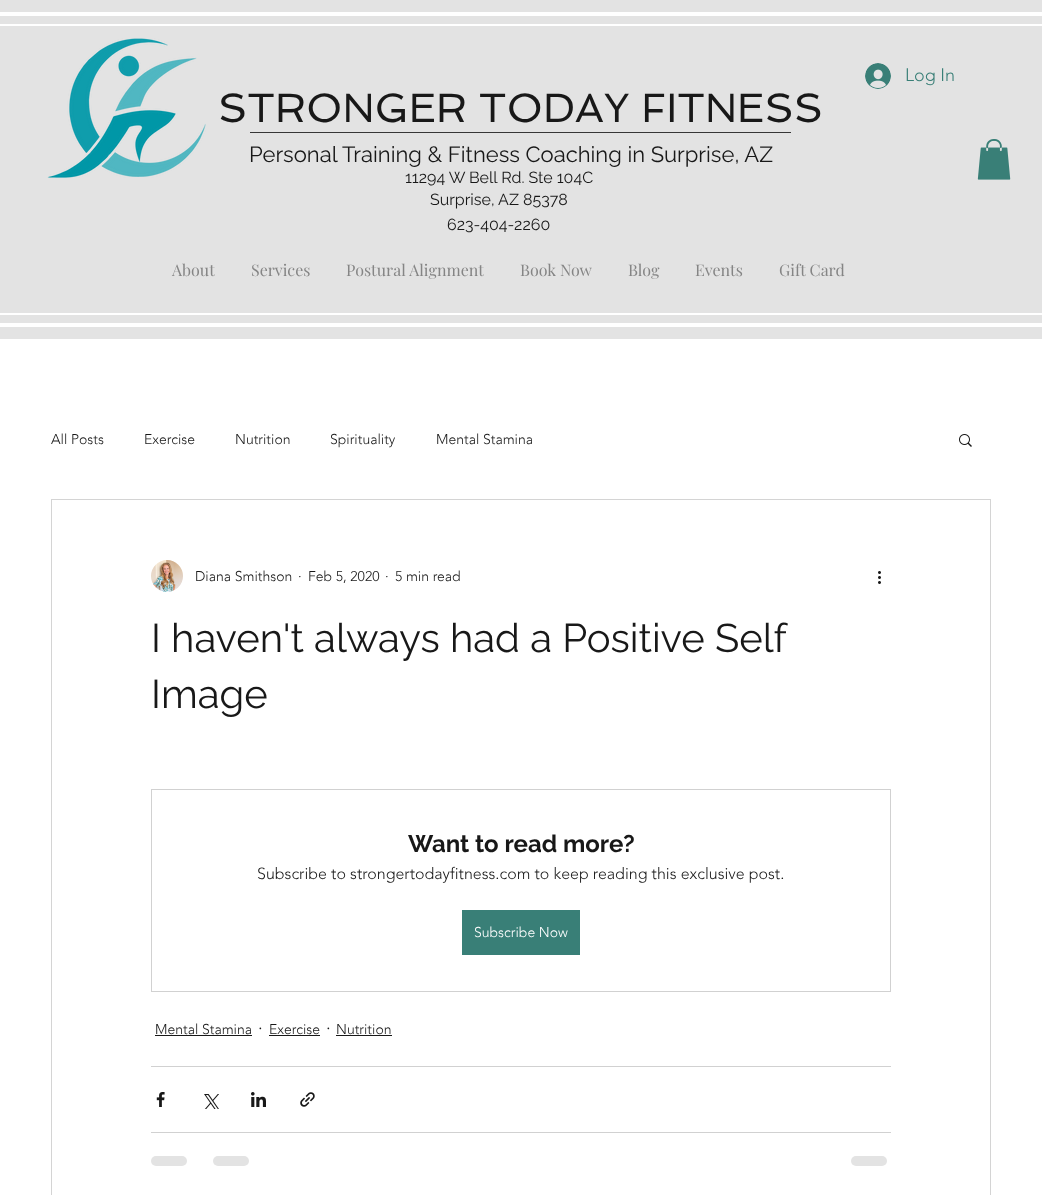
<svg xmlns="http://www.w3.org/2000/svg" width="1042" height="1195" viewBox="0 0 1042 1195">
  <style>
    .t1 { font: 300 18px 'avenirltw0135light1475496'; fill: #397f77; }
    .t2 { font: 41px Spinnaker; fill: #181818; }
    .t3 { font: 22px Raleway; fill: #181818; }
    .t4 { font: 16px Raleway; fill: #181818; }
    .t5 { font: 16px Playfair Display; fill: #858585; }
    .t6 { font: 300 14px 'avenirltw0135light1475496'; fill: #181818; }
    .t7 { font: 40px Raleway; fill: #181818; }
    .t8 { font: bold 24px Raleway; fill: #181818; }
    .t9 { font: 300 16px 'avenirltw0135light1475496'; fill: #181818; }
    .t10 { font: 300 14px 'avenirltw0135light1475496'; fill: #fff; }
    .t11 { font: 300 18px 'avenirltw0135light1475496'; fill: #181818; }
  </style>
  <rect width="100%" height="100%" fill="#fff"/>
  <rect x="0" y="0" width="1042" height="339" fill="#e3e3e3"/>
  <rect x="0" y="12" width="1042" height="4" fill="#fff"/>
  <rect x="0" y="323" width="1042" height="4" fill="#fff"/>
  <rect x="0" y="24" width="1042" height="2" fill="#fff"/>
  <rect x="0" y="313" width="1042" height="2" fill="#fff"/>
  <image x="47" y="38" width="159" height="140" href="images/1.png"/>
  <image x="865" y="63" width="26" height="26" href="images/2.png"/>
  <text x="905" y="81" class="t1">Log In</text>
  <text x="218" y="122" class="t2">STRONGER TODAY FITNESS</text>
  <rect x="250" y="132" width="541" height="1" fill="#363636"/>
  <text x="249" y="162" class="t3">Personal Training &amp; Fitness Coaching in Surprise, AZ</text>
  <image x="977" y="139" width="34" height="41" href="images/3.png"/>
  <text x="405" y="183" class="t4">11294 W Bell Rd. Ste 104C</text>
  <text x="430" y="205" class="t4">Surprise, AZ 85378</text>
  <text x="447" y="230" class="t4">623-404-2260</text>
  <text x="172" y="276" class="t5">About</text>
  <text x="251" y="276" class="t5">Services</text>
  <text x="346" y="276" class="t5">Postural Alignment</text>
  <text x="520" y="276" class="t5">Book Now</text>
  <text x="628" y="276" class="t5">Blog</text>
  <text x="695" y="276" class="t5">Events</text>
  <text x="779" y="276" class="t5">Gift Card</text>
  <text x="51" y="444" class="t6">All Posts</text>
  <text x="144" y="444" class="t6">Exercise</text>
  <text x="235" y="444" class="t6">Nutrition</text>
  <text x="330" y="444" class="t6">Spirituality</text>
  <text x="436" y="444" class="t6">Mental Stamina</text>
  <image x="959" y="434" width="13" height="13" href="images/4.png"/>
  <rect x="51.5" y="499.5" width="939" height="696" fill="none" stroke="#d4d4d4"/>
  <image x="151" y="560" width="32" height="32" href="images/5.png"/>
  <text x="195" y="581" class="t6">Diana Smithson</text>
  <text x="298" y="581" class="t6">·</text>
  <text x="308" y="581" class="t6">Feb 5, 2020</text>
  <text x="385" y="581" class="t6">·</text>
  <text x="395" y="581" class="t6">5 min read</text>
  <image x="878" y="571" width="3" height="13" href="images/6.png"/>
  <text x="151" y="652" class="t7">I haven't always had a Positive Self</text>
  <text x="151" y="708" class="t7">Image</text>
  <rect x="151.5" y="789.5" width="739" height="202" fill="none" stroke="#d1d1d1"/>
  <text x="408" y="852" class="t8">Want to read more?</text>
  <text x="257" y="879" class="t9">Subscribe to strongertodayfitness.com to keep reading this exclusive post.</text>
  <rect x="462" y="910" width="118" height="45" fill="#397f77"/>
  <text x="474" y="937" class="t10">Subscribe Now</text>
  <text x="155" y="1034" class="t6">Mental Stamina</text>
  <rect x="155" y="1035" width="97" height="1" fill="#181818"/>
  <text x="258" y="1034" class="t11">·</text>
  <text x="269" y="1034" class="t6">Exercise</text>
  <rect x="269" y="1035" width="51" height="1" fill="#181818"/>
  <text x="326" y="1034" class="t11">·</text>
  <text x="336" y="1034" class="t6">Nutrition</text>
  <rect x="336" y="1035" width="56" height="1" fill="#181818"/>
  <rect x="151" y="1066" width="740" height="1" fill="#d1d1d1"/>
  <image x="156" y="1092" width="9" height="15" href="images/7.png"/>
  <image x="204" y="1094" width="15" height="15" href="images/8.png"/>
  <image x="251" y="1092" width="15" height="15" href="images/9.png"/>
  <image x="300" y="1092" width="15" height="15" href="images/10.png"/>
  <rect x="151" y="1132" width="740" height="1" fill="#d1d1d1"/>
  <rect x="151" y="1156" width="36" height="10" rx="5" fill="#e3e3e3"/>
  <rect x="213" y="1156" width="36" height="10" rx="5" fill="#e3e3e3"/>
  <rect x="851" y="1156" width="36" height="10" rx="5" fill="#e3e3e3"/>
</svg>
